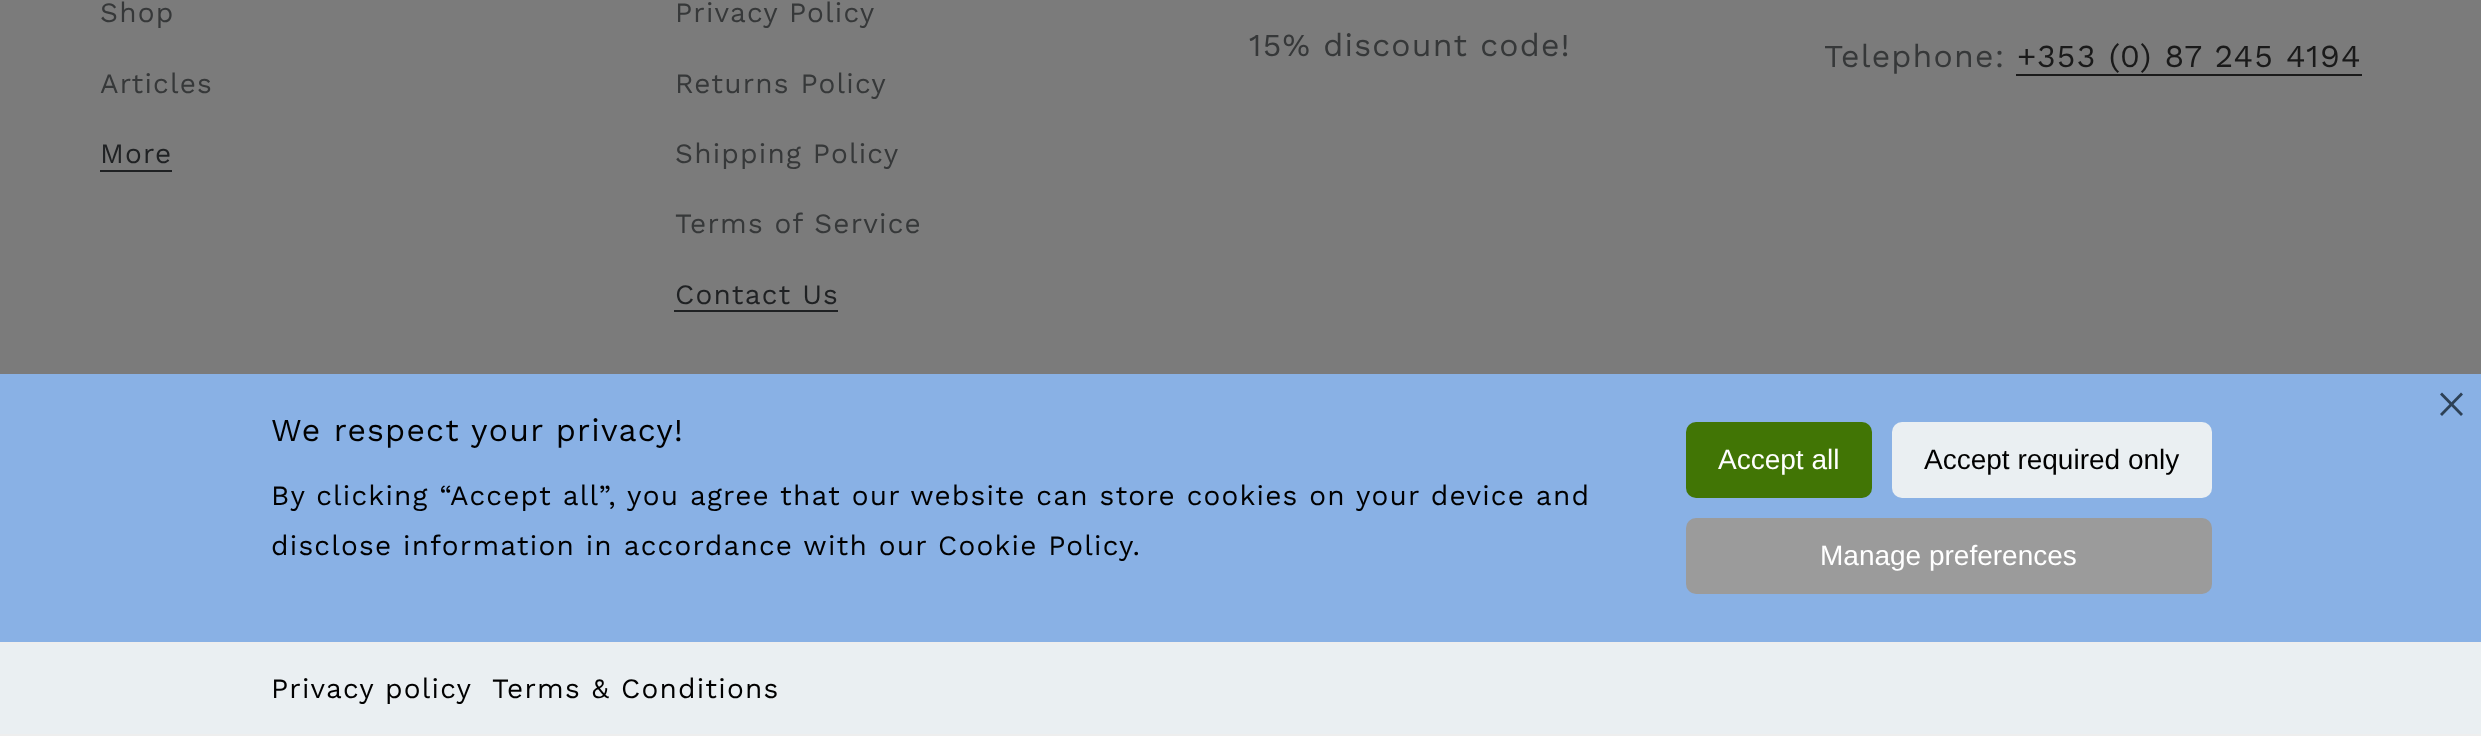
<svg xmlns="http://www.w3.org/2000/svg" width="2481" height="736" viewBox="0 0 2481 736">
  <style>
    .t1 { font: 28px Work Sans; letter-spacing: 1.2px; fill: #363839; }
    .t2 { font: 28px Work Sans; letter-spacing: 1.2px; fill: #1f2123; }
    .t3 { font: 32px Work Sans; letter-spacing: 1.2px; fill: #363839; }
    .t4 { font: 32px Work Sans; letter-spacing: 1.2px; fill: #1a1a1a; }
    .t5 { font: 32px Work Sans; letter-spacing: 1.2px; fill: #000; }
    .t6 { font: 28px Work Sans; letter-spacing: 1.2px; fill: #000; }
    .t7 { font: 28px Liberation Sans; fill: #fff; }
    .t8 { font: 28px Liberation Sans; fill: #000; }
  </style>
  <rect width="100%" height="100%" fill="#7b7b7b"/>
  <text x="100" y="22" class="t1">Shop</text>
  <text x="100" y="93" class="t1">Articles</text>
  <text x="100" y="163" class="t2">More</text>
  <rect x="100" y="170" width="72" height="2" fill="#1f2123"/>
  <text x="675" y="22" class="t1">Privacy Policy</text>
  <text x="675" y="93" class="t1">Returns Policy</text>
  <text x="675" y="163" class="t1">Shipping Policy</text>
  <text x="675" y="233" class="t1">Terms of Service</text>
  <text x="675" y="304" class="t2">Contact Us</text>
  <rect x="674" y="310" width="164" height="2" fill="#1f2123"/>
  <text x="1249" y="56" class="t3">15% discount code!</text>
  <text x="1824" y="67" class="t3">Telephone:</text>
  <text x="2017" y="67" class="t4">+353 (0) 87 245 4194</text>
  <rect x="2016" y="74" width="346" height="2" fill="#1a1a1a"/>
  <rect x="0" y="374" width="2481" height="268" fill="#89b1e5"/>
  <path d="M2461 392.5L2463 394.5L2442 416L2440 414Z" fill="#2d4156"/>
  <path d="M2440 394.5L2442 392.5L2463 414L2461 416Z" fill="#2d4156"/>
  <text x="271" y="441" class="t5">We respect your privacy!</text>
  <text x="271" y="505" class="t6">By clicking “Accept all”, you agree that our website can store cookies on your device and</text>
  <text x="271" y="555" class="t6">disclose information in accordance with our Cookie Policy.</text>
  <rect x="1686" y="422" width="186" height="76" rx="10" fill="#417505"/>
  <text x="1718" y="469" class="t7">Accept all</text>
  <rect x="1892" y="422" width="320" height="76" rx="10" fill="#eaeff2"/>
  <text x="1924" y="469" class="t8">Accept required only</text>
  <rect x="1686" y="518" width="526" height="76" rx="10" fill="#9b9b9b"/>
  <text x="1820" y="565" class="t7">Manage preferences</text>
  <rect x="0" y="644" width="2481" height="90" fill="#eaeff2"/>
  <rect x="0" y="642" width="2481" height="2" fill="#eee"/>
  <rect x="0" y="734" width="2481" height="2" fill="#eee"/>
  <text x="271" y="698" class="t6">Privacy policy</text>
  <text x="492" y="698" class="t6">Terms &amp; Conditions</text>
</svg>
